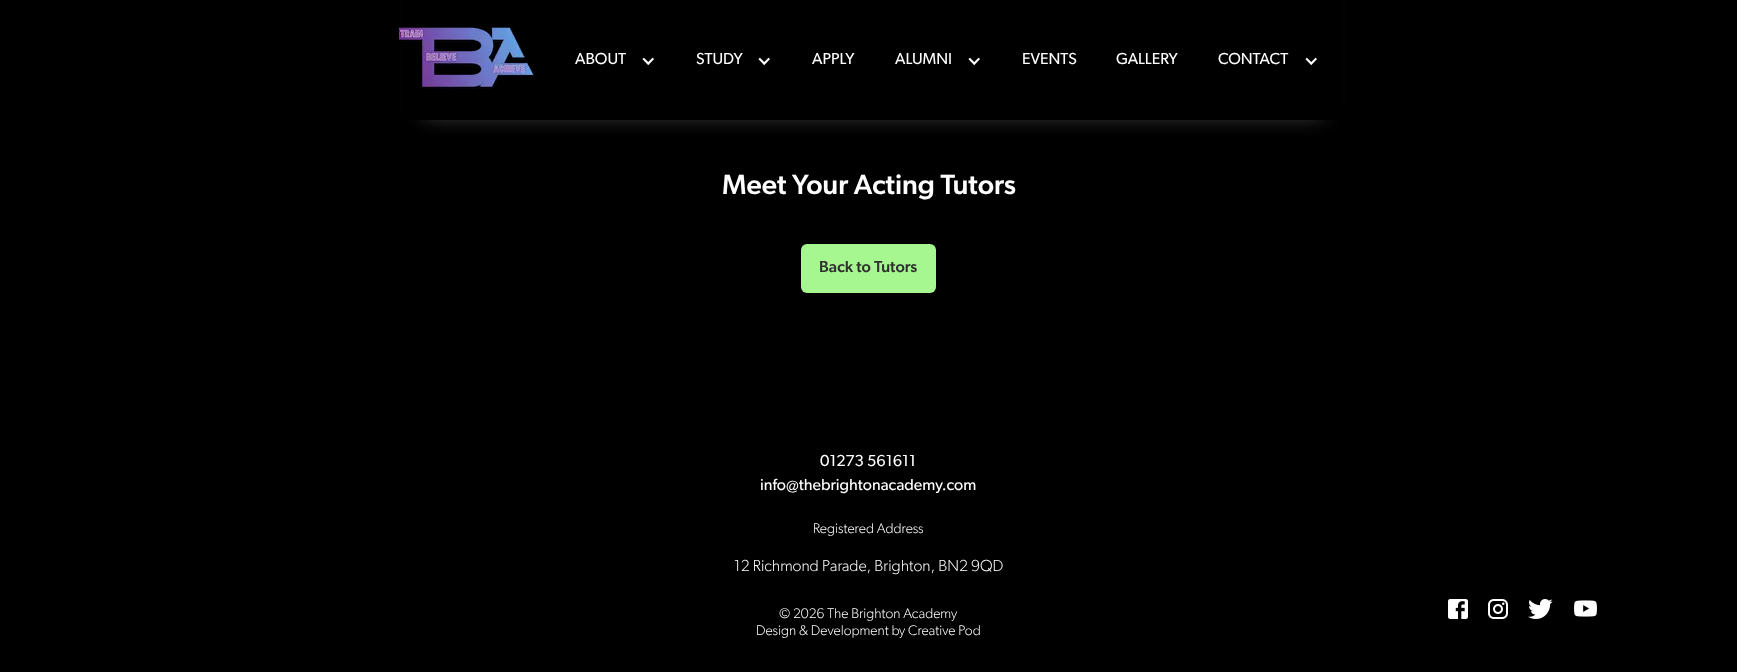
<svg xmlns="http://www.w3.org/2000/svg" width="1737" height="672" viewBox="0 0 1737 672">
  <style>
    .t1 { font: 16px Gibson; fill: #fff; }
    .t2 { font: 500 28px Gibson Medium; fill: #fff; }
    .t3 { font: 500 16px Gibson Medium; fill: #303030; }
    .t4 { font: 300 14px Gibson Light; fill: #fff; }
    .t5 { font: 300 16px Gibson Light; fill: #fff; }
  </style>
  <rect width="100%" height="100%" fill="#000"/>
  <rect x="421" y="-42" width="904" height="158" rx="12" fill="#ffffff4d" filter="blur(10px)"/>
  <rect x="403" y="0" width="940" height="120" fill="#000"/>
  <image x="399" y="27" width="136" height="62" href="images/1.png"/>
  <text x="575" y="64" class="t1">ABOUT</text>
  <image x="642" y="57" width="12" height="9" href="images/2.png"/>
  <text x="696" y="64" class="t1">STUDY</text>
  <image x="758" y="57" width="12" height="9" href="images/2.png"/>
  <text x="812" y="64" class="t1">APPLY</text>
  <text x="895" y="64" class="t1">ALUMNI</text>
  <image x="968" y="57" width="12" height="9" href="images/2.png"/>
  <text x="1022" y="64" class="t1">EVENTS</text>
  <text x="1116" y="64" class="t1">GALLERY</text>
  <text x="1218" y="64" class="t1">CONTACT</text>
  <image x="1305" y="57" width="12" height="9" href="images/2.png"/>
  <text x="722" y="194" class="t2">Meet Your Acting Tutors</text>
  <rect x="801" y="244" width="135" height="49" rx="6" fill="#a6f790"/>
  <text x="819" y="272" class="t3">Back to Tutors</text>
  <text x="820" y="466" class="t1">01273 561611</text>
  <text x="760" y="490" class="t1">info@thebrightonacademy.com</text>
  <text x="813" y="533" class="t4">Registered Address</text>
  <text x="734" y="571" class="t5">12 Richmond Parade, Brighton, BN2 9QD</text>
  <text x="779" y="618" class="t4">© 2026 The Brighton Academy</text>
  <text x="756" y="635" class="t4">Design &amp; Development by Creative Pod</text>
  <image x="1448" y="599" width="20" height="20" href="images/3.png"/>
  <image x="1488" y="599" width="20" height="20" href="images/4.png"/>
  <image x="1528" y="599" width="25" height="20" href="images/5.png"/>
  <image x="1574" y="600" width="23" height="17" href="images/6.png"/>
</svg>
